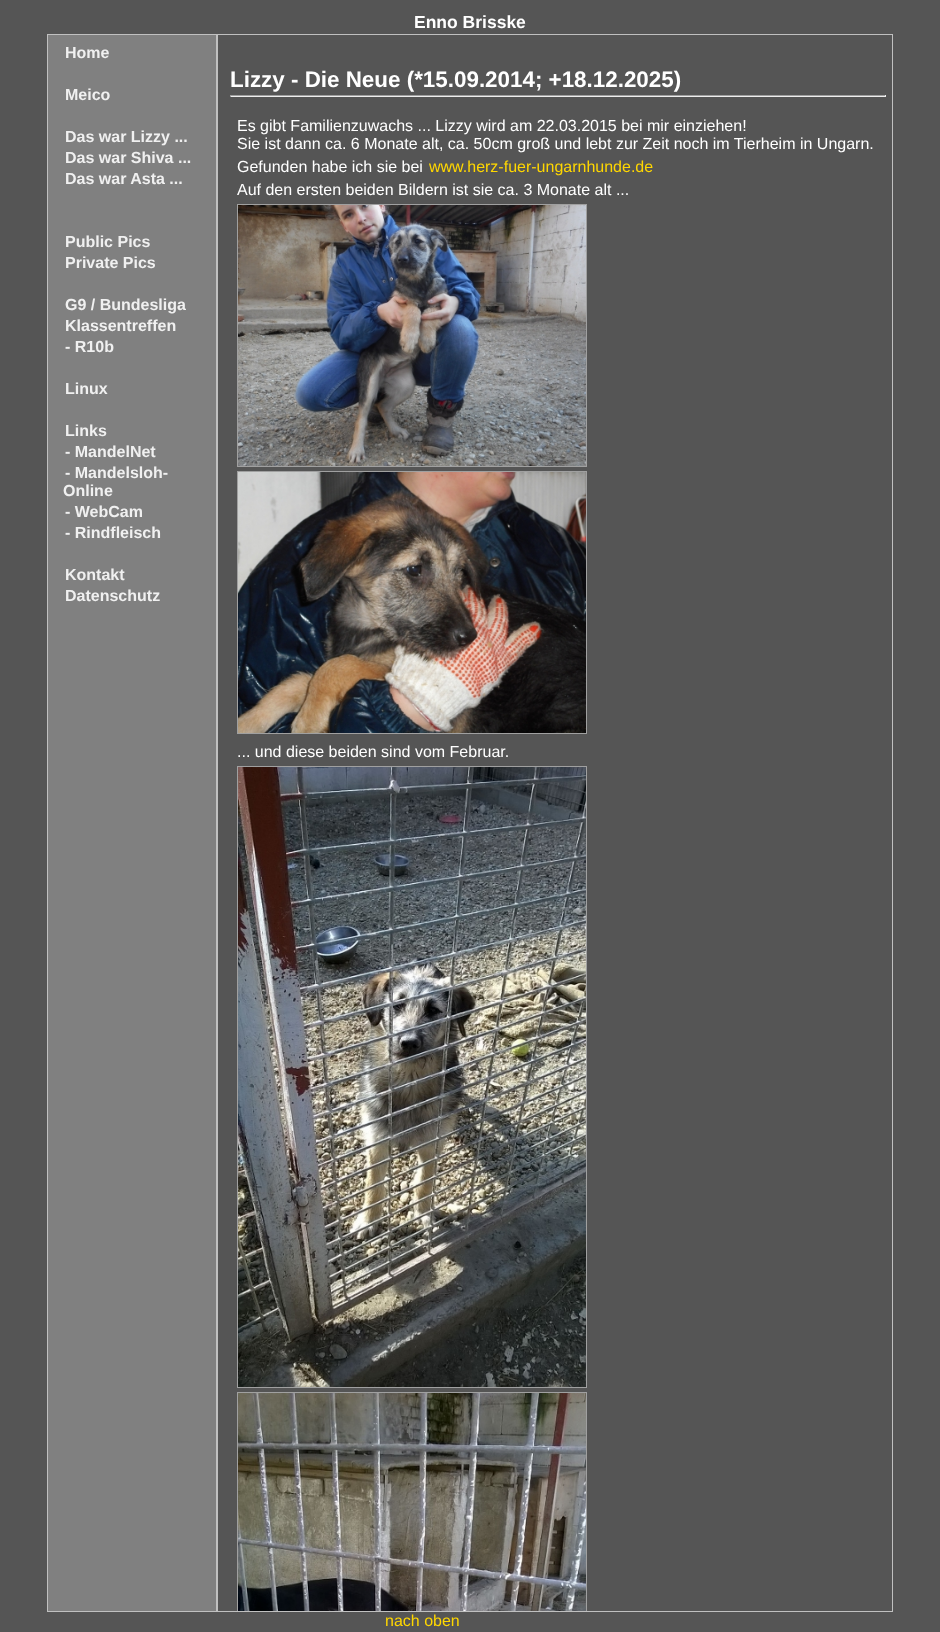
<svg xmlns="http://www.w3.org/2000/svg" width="940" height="1632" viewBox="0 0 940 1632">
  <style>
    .t1 { font: bold 17.5px Liberation Sans; fill: #fff; }
    .t2 { font: bold 16px Liberation Sans; fill: #f0f0f0; }
    .t3 { font: bold 22.4px Liberation Sans; fill: #fff; }
    .t4 { font: 16px Liberation Sans; fill: #fff; }
    .t5 { font: 16px Liberation Sans; fill: #ffd700; }
  </style>
  <defs>
    <clipPath id="clip1"><rect x="218" y="35" width="674" height="1576"/></clipPath>
  </defs>
  <rect width="100%" height="100%" fill="#555"/>
  <text x="414" y="28" class="t1">Enno Brisske</text>
  <rect x="47.5" y="34.5" width="169" height="1577" fill="#808080" stroke="#c0c0c0"/>
  <text x="65" y="58" class="t2">Home</text>
  <text x="65" y="100" class="t2">Meico</text>
  <text x="65" y="142" class="t2">Das war Lizzy ...</text>
  <text x="65" y="163" class="t2">Das war Shiva ...</text>
  <text x="65" y="184" class="t2">Das war Asta ...</text>
  <text x="65" y="247" class="t2">Public Pics</text>
  <text x="65" y="268" class="t2">Private Pics</text>
  <text x="65" y="310" class="t2">G9 / Bundesliga</text>
  <text x="65" y="331" class="t2">Klassentreffen</text>
  <text x="65" y="352" class="t2">- R10b</text>
  <text x="65" y="394" class="t2">Linux</text>
  <text x="65" y="436" class="t2">Links</text>
  <text x="65" y="457" class="t2">- MandelNet</text>
  <text x="65" y="478" class="t2">- Mandelsloh-</text>
  <text x="63" y="496" class="t2">Online</text>
  <text x="65" y="517" class="t2">- WebCam</text>
  <text x="65" y="538" class="t2">- Rindfleisch</text>
  <text x="65" y="580" class="t2">Kontakt</text>
  <text x="65" y="601" class="t2">Datenschutz</text>
  <rect x="217.5" y="34.5" width="675" height="1577" fill="none" stroke="#c0c0c0"/>
  <text x="230" y="87" class="t3">Lizzy - Die Neue (*15.09.2014; +18.12.2025)</text>
  <rect x="230" y="95" width="656" height="1" fill="#9f9f9f"/>
  <rect x="885" y="95" width="1" height="2" fill="#eee"/>
  <rect x="230" y="96" width="656" height="1" fill="#eee"/>
  <rect x="230" y="95" width="1" height="2" fill="#9f9f9f"/>
  <text x="237" y="131" class="t4">Es gibt Familienzuwachs ... Lizzy wird am 22.03.2015 bei mir einziehen!</text>
  <text x="237" y="149" class="t4">Sie ist dann ca. 6 Monate alt, ca. 50cm groß und lebt zur Zeit noch im Tierheim in Ungarn.</text>
  <text x="237" y="172" class="t4">Gefunden habe ich sie bei</text>
  <text x="429" y="172" class="t5">www.herz-fuer-ungarnhunde.de</text>
  <text x="237" y="195" class="t4">Auf den ersten beiden Bildern ist sie ca. 3 Monate alt ...</text>
  <rect x="237.5" y="204.5" width="349" height="262" fill="none" stroke="#a0a0a0"/>
  <image x="238" y="205" width="348" height="261" href="images/1.png"/>
  <rect x="237.5" y="471.5" width="349" height="262" fill="none" stroke="#a0a0a0"/>
  <image x="238" y="472" width="348" height="261" href="images/2.png"/>
  <text x="237" y="757" class="t4">... und diese beiden sind vom Februar.</text>
  <rect x="237.5" y="766.5" width="349" height="621" fill="none" stroke="#a0a0a0"/>
  <image x="238" y="767" width="348" height="620" href="images/3.png"/>
  <g clip-path="url(#clip1)">
    <rect x="237.5" y="1392.5" width="349" height="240" fill="none" stroke="#a0a0a0"/>
  </g>
  <image x="238" y="1393" width="348" height="218" href="images/4.png"/>
  <text x="385" y="1626" class="t5">nach oben</text>
</svg>
